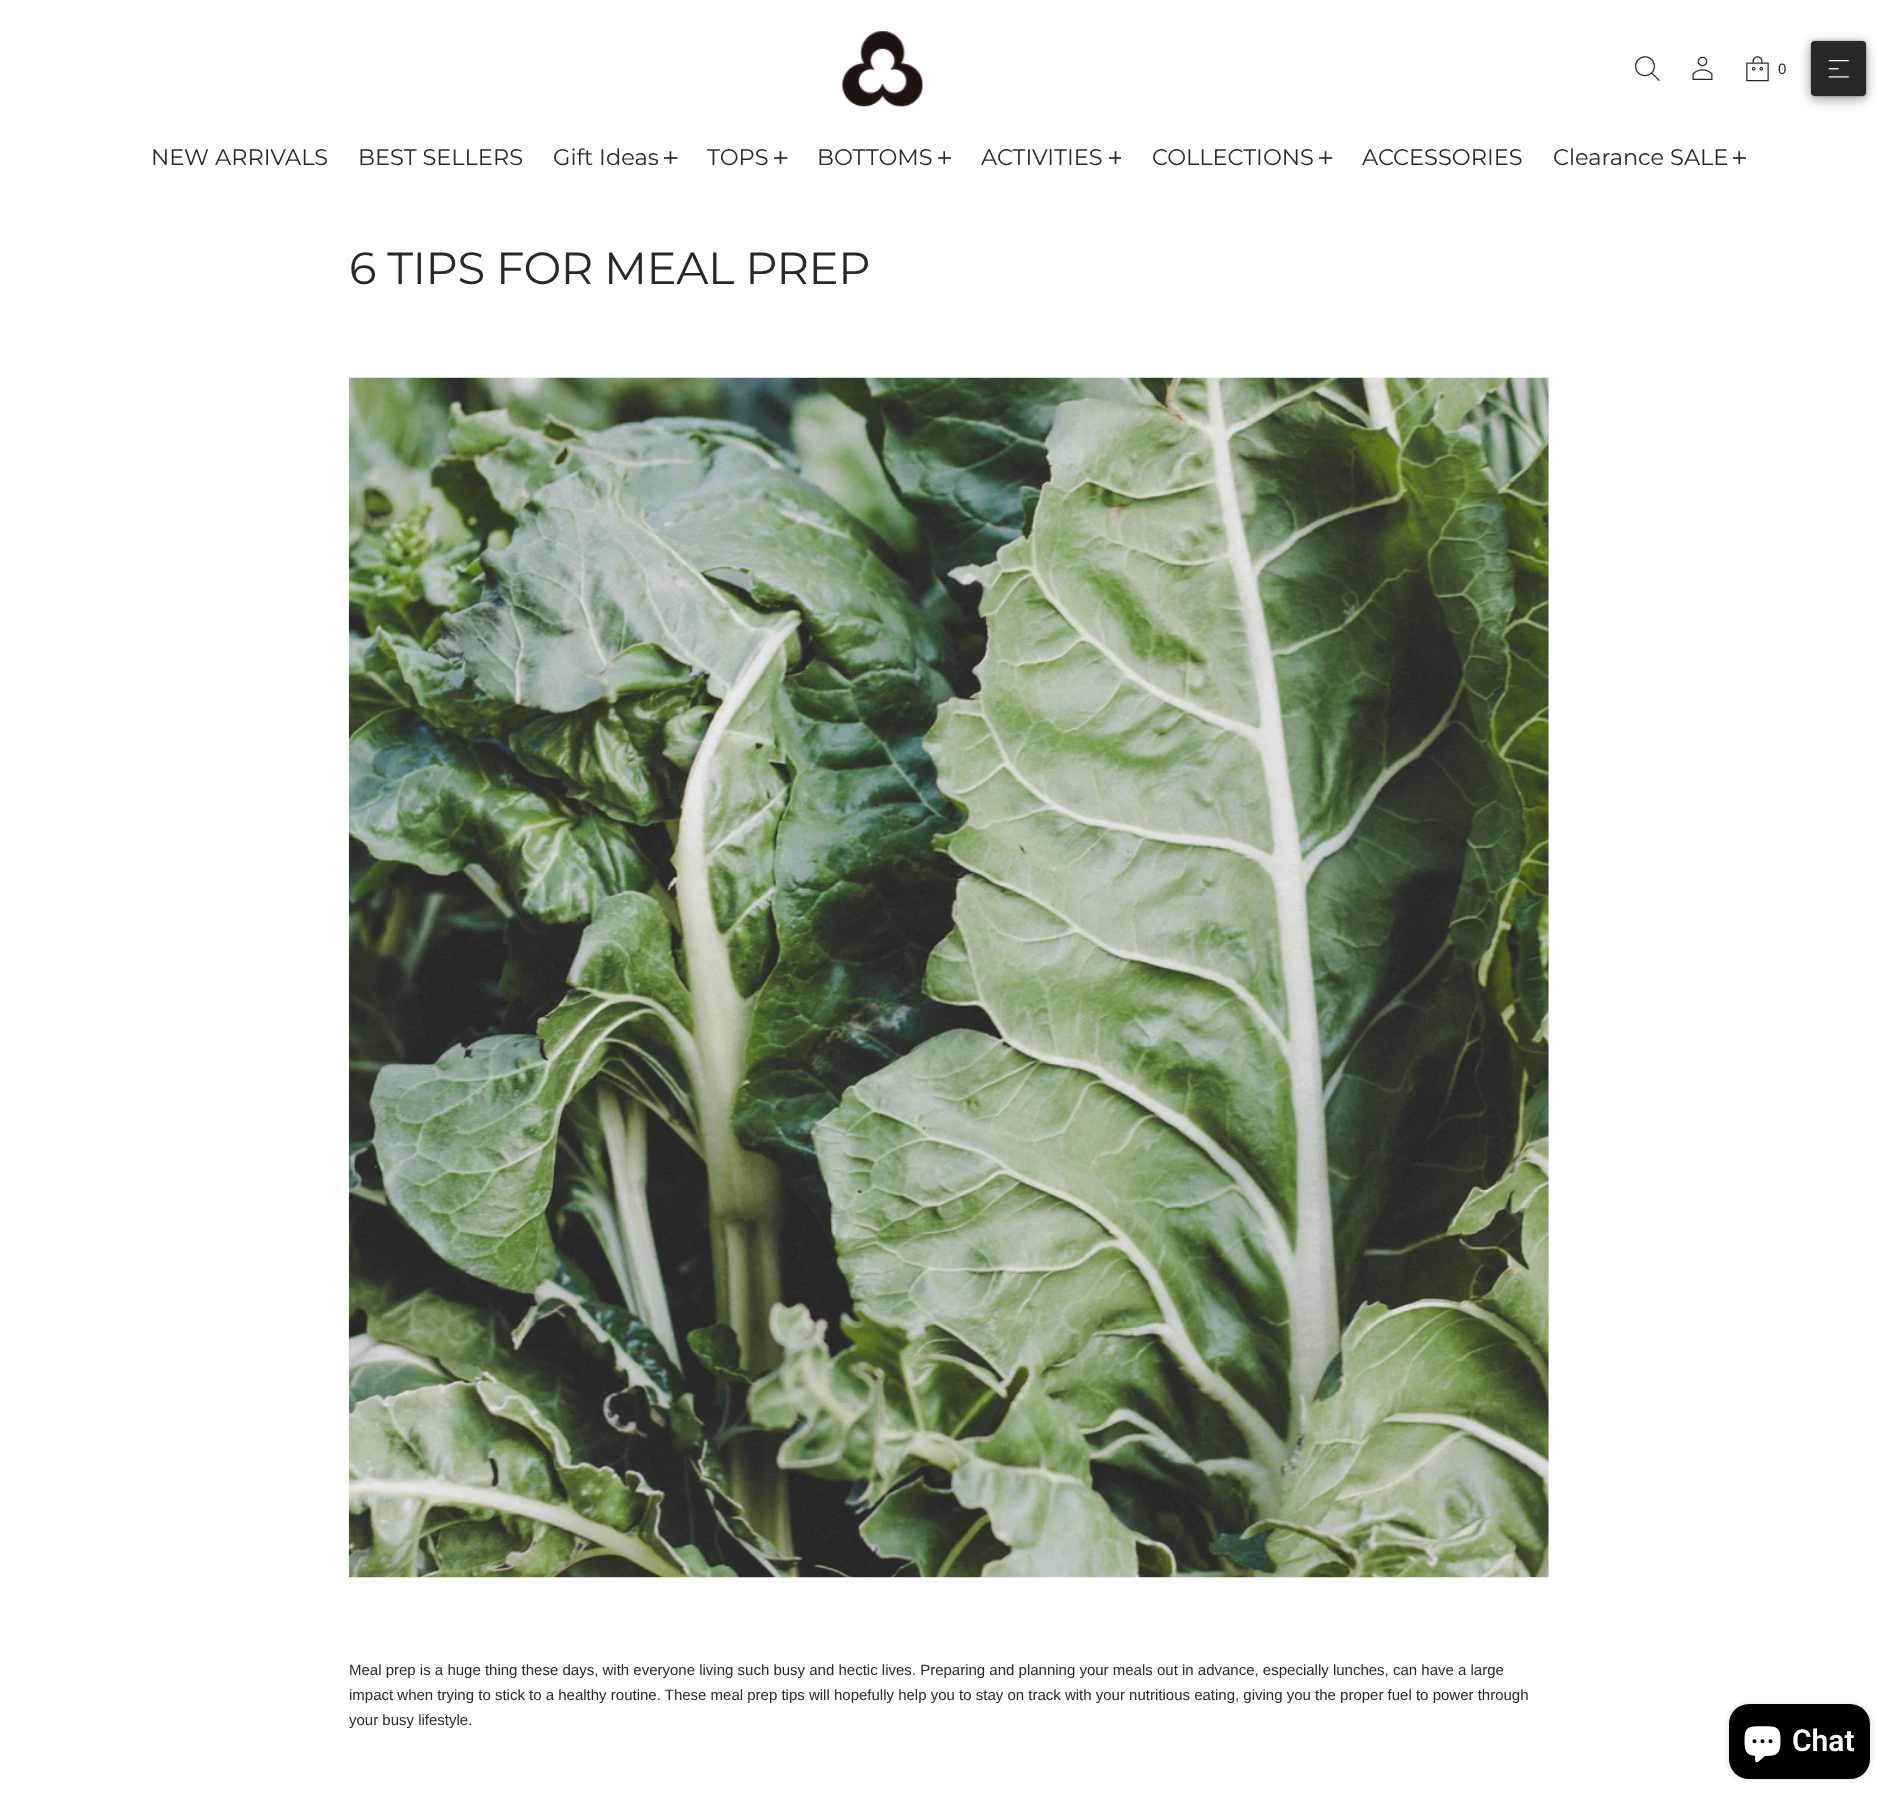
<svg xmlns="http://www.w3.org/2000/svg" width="1897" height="1804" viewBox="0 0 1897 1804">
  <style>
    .t1 { font: 15px Arimo; fill: #282828; }
    .t2 { font: 22.5px Montserrat; fill: #282828; }
    .t3 { font: 45px Montserrat; letter-spacing: -0.5px; fill: #282828; }
    .t4 { font: 600 30px Roboto; fill: #fff; }
  </style>
  <rect width="100%" height="100%" fill="#fff"/>
  <image x="842" y="31" width="81" height="76" href="images/1.png"/>
  <image x="1635" y="56" width="25" height="25" href="images/2.png"/>
  <image x="1692" y="56" width="21" height="24" href="images/3.png"/>
  <image x="1746" y="56" width="23" height="26" href="images/4.png"/>
  <text x="1778" y="74" class="t1">0</text>
  <rect x="1811" y="44" width="55" height="55" rx="4" fill="#28282840" filter="blur(6px)"/>
  <rect x="1811" y="41" width="55" height="55" rx="4" fill="#28282840" filter="blur(1px)"/>
  <rect x="1811" y="44" width="55" height="55" rx="4" fill="#28282840" filter="blur(6px)"/>
  <rect x="1811" y="41" width="55" height="55" rx="4" fill="#28282840" filter="blur(1px)"/>
  <rect x="1811" y="41" width="55" height="55" rx="4" fill="#282828"/>
  <image x="1828" y="60" width="21" height="18" href="images/5.png"/>
  <text x="151" y="165" class="t2">NEW ARRIVALS</text>
  <text x="358" y="165" class="t2">BEST SELLERS</text>
  <text x="553" y="165" class="t2">Gift Ideas</text>
  <image x="664" y="151" width="14" height="13" href="images/6.png"/>
  <text x="707" y="165" class="t2">TOPS</text>
  <image x="774" y="151" width="14" height="13" href="images/6.png"/>
  <text x="817" y="165" class="t2">BOTTOMS</text>
  <image x="938" y="151" width="13" height="13" href="images/7.png"/>
  <text x="981" y="165" class="t2">ACTIVITIES</text>
  <image x="1109" y="151" width="12" height="13" href="images/8.png"/>
  <text x="1152" y="165" class="t2">COLLECTIONS</text>
  <image x="1319" y="151" width="14" height="13" href="images/6.png"/>
  <text x="1362" y="165" class="t2">ACCESSORIES</text>
  <text x="1553" y="165" class="t2">Clearance SALE</text>
  <image x="1733" y="151" width="13" height="13" href="images/7.png"/>
  <text x="349" y="284" class="t3">6 TIPS FOR MEAL PREP</text>
  <image x="348" y="377" width="1201" height="1201" href="images/9.png"/>
  <text x="349" y="1675" class="t1">Meal prep is a huge thing these days, with everyone living such busy and hectic lives. Preparing and planning your meals out in advance, especially lunches, can have a large</text>
  <text x="349" y="1700" class="t1">impact when trying to stick to a healthy routine. These meal prep tips will hopefully help you to stay on track with your nutritious eating, giving you the proper fuel to power through</text>
  <text x="349" y="1725" class="t1">your busy lifestyle.</text>
  <rect x="1729" y="1704" width="141" height="75" rx="20" fill="#00000026" filter="blur(3px)"/>
  <rect x="1729" y="1704" width="141" height="75" rx="20" fill="#000"/>
  <image x="1744" y="1726" width="37" height="37" href="images/10.png"/>
  <text x="1792" y="1751" class="t4">Chat</text>
</svg>
